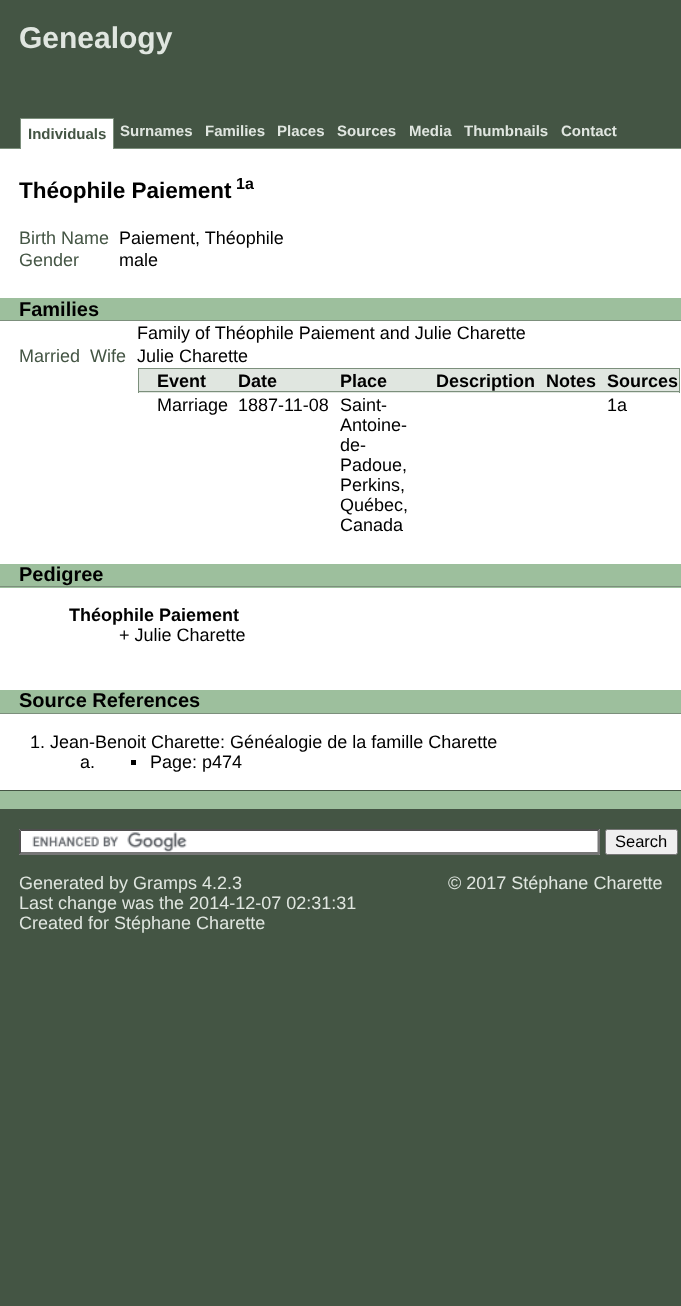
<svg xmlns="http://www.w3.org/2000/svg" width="681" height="1306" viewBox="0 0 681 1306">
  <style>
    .t1 { font: bold 30px Liberation Sans; fill: #e0e6e0; }
    .t2 { font: bold 15px Liberation Sans; fill: #454; }
    .t3 { font: bold 15px Liberation Sans; fill: #e0e6e0; }
    .t4 { font: bold 22.5px Liberation Sans; fill: #000; }
    .t5 { font: bold 16px Liberation Sans; fill: #000; }
    .t6 { font: 18px Liberation Sans; fill: #454; }
    .t7 { font: 18px Liberation Sans; fill: #000; }
    .t8 { font: bold 20px Liberation Sans; fill: #000; }
    .t9 { font: bold 18px Liberation Sans; fill: #000; }
    .t10 { font: 16.5px Liberation Sans; fill: #000; }
    .t11 { font: 18px Liberation Sans; fill: #e0e6e0; }
  </style>
  <rect width="100%" height="100%" fill="#454"/>
  <text x="19" y="48" class="t1">Genealogy</text>
  <rect x="0" y="148" width="681" height="1" fill="#7c8f7c"/>
  <rect x="21" y="119" width="92" height="30" fill="#fff"/>
  <rect x="20" y="118" width="94" height="1" fill="#7c8f7c"/>
  <rect x="113" y="118" width="1" height="31" fill="#7c8f7c"/>
  <rect x="20" y="118" width="1" height="31" fill="#7c8f7c"/>
  <text x="28" y="139" class="t2">Individuals</text>
  <text x="120" y="136" class="t3">Surnames</text>
  <text x="205" y="136" class="t3">Families</text>
  <text x="277" y="136" class="t3">Places</text>
  <text x="337" y="136" class="t3">Sources</text>
  <text x="409" y="136" class="t3">Media</text>
  <text x="464" y="136" class="t3">Thumbnails</text>
  <text x="561" y="136" class="t3">Contact</text>
  <rect x="0" y="149" width="681" height="641" fill="#fff"/>
  <text x="19" y="198" class="t4">Théophile Paiement</text>
  <text x="236" y="189" class="t5">1a</text>
  <text x="19" y="244" class="t6">Birth Name</text>
  <text x="119" y="244" class="t7">Paiement, Théophile</text>
  <text x="19" y="266" class="t6">Gender</text>
  <text x="119" y="266" class="t7">male</text>
  <rect x="0" y="298" width="681" height="22" fill="#9dbf9d"/>
  <rect x="0" y="320" width="681" height="1" fill="#7c8f7c"/>
  <text x="19" y="316" class="t8">Families</text>
  <text x="137" y="339" class="t7">Family of Théophile Paiement and Julie Charette</text>
  <text x="19" y="362" class="t6">Married</text>
  <text x="90" y="362" class="t6">Wife</text>
  <text x="137" y="362" class="t7">Julie Charette</text>
  <rect x="139" y="369" width="540" height="24" fill="#e0e6e0"/>
  <rect x="138" y="368" width="542" height="1" fill="#7c8f7c"/>
  <rect x="679" y="368" width="1" height="25" fill="#7c8f7c"/>
  <rect x="138" y="391" width="542" height="1" fill="#7c8f7c"/>
  <rect x="138" y="368" width="1" height="25" fill="#7c8f7c"/>
  <text x="157" y="387" class="t9">Event</text>
  <text x="238" y="387" class="t9">Date</text>
  <text x="340" y="387" class="t9">Place</text>
  <text x="436" y="387" class="t9">Description</text>
  <text x="546" y="387" class="t9">Notes</text>
  <text x="607" y="387" class="t9">Sources</text>
  <text x="157" y="411" class="t7">Marriage</text>
  <text x="238" y="411" class="t7">1887-11-08</text>
  <text x="340" y="411" class="t7">Saint-</text>
  <text x="340" y="431" class="t7">Antoine-</text>
  <text x="340" y="451" class="t7">de-</text>
  <text x="340" y="471" class="t7">Padoue,</text>
  <text x="340" y="491" class="t7">Perkins,</text>
  <text x="340" y="511" class="t7">Québec,</text>
  <text x="340" y="531" class="t7">Canada</text>
  <text x="607" y="411" class="t7">1a</text>
  <rect x="0" y="564" width="681" height="24" fill="#9dbf9d"/>
  <rect x="0" y="586" width="681" height="1" fill="#7c8f7c"/>
  <text x="19" y="581" class="t8">Pedigree</text>
  <text x="69" y="621" class="t9">Théophile Paiement</text>
  <text x="119" y="641" class="t7">+ Julie Charette</text>
  <rect x="0" y="690" width="681" height="23" fill="#9dbf9d"/>
  <rect x="0" y="713" width="681" height="1" fill="#7c8f7c"/>
  <text x="19" y="707" class="t8">Source References</text>
  <text x="30" y="748" class="t7">1. Jean-Benoit Charette: Généalogie de la famille Charette</text>
  <text x="80" y="768" class="t7">a.</text>
  <rect x="131" y="760" width="5" height="5" fill="#000"/>
  <text x="150" y="768" class="t7">Page: p474</text>
  <rect x="0" y="791" width="681" height="18" fill="#9dbf9d"/>
  <rect x="19" y="829" width="581" height="26" fill="#fff"/>
  <image x="32" y="832" width="155" height="20" href="images/1.png"/>
  <path d="M19 829H600L598 831H21Z" fill="#4f4f4f"/>
  <path d="M600 829V855L597.5 852.5V831Z" fill="#767676"/>
  <path d="M600 855H19L21 852H598Z" fill="#767676"/>
  <path d="M19 855V829L21 831V852.5Z" fill="#4f4f4f"/>
  <rect x="605.5" y="829.5" width="72" height="25" rx="2" fill="#efefef" stroke="#767676"/>
  <text x="615" y="847" class="t10">Search</text>
  <text x="19" y="889" class="t11">Generated by Gramps 4.2.3</text>
  <text x="19" y="909" class="t11">Last change was the 2014-12-07 02:31:31</text>
  <text x="19" y="929" class="t11">Created for Stéphane Charette</text>
  <text x="448" y="889" class="t11">© 2017 Stéphane Charette</text>
</svg>
